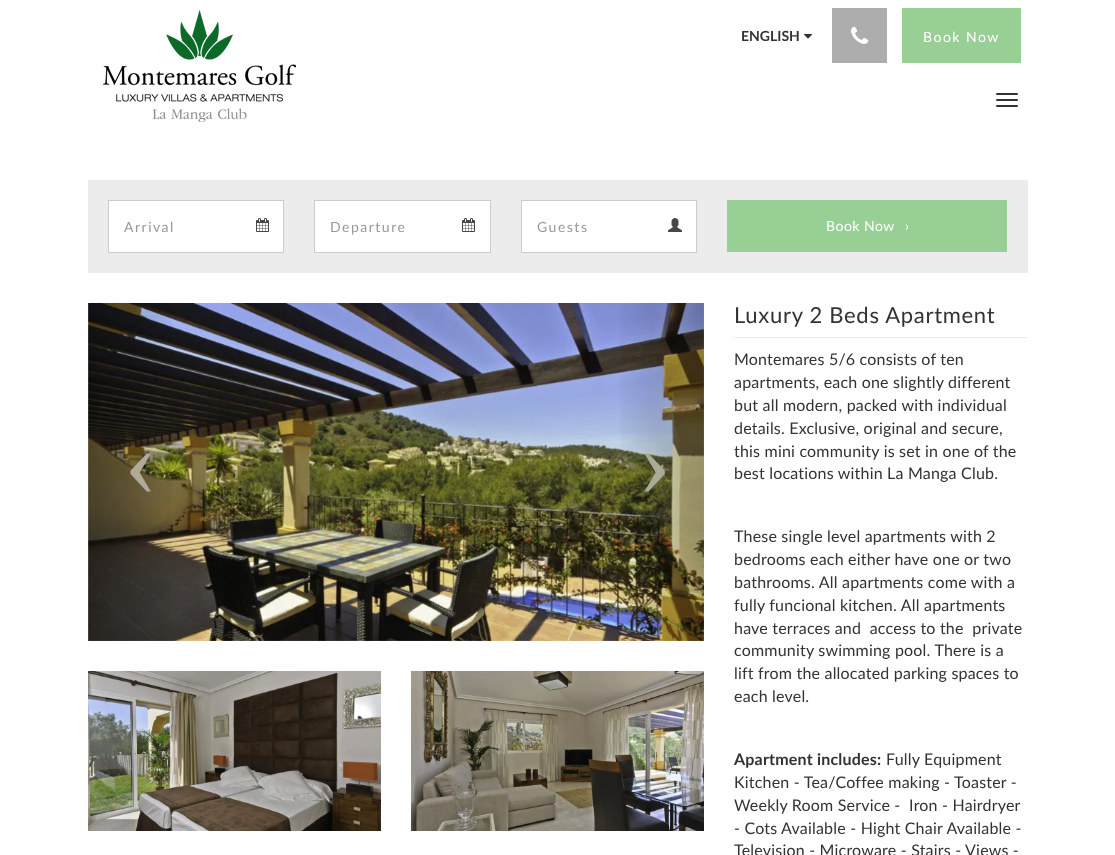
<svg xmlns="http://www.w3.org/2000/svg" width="1115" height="855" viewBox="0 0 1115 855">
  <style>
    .t1 { font: bold 14px Lato; fill: #333; }
    .t2 { font: 14px Lato; letter-spacing: 1.5px; fill: #fff; }
    .t3 { font: 14px Lato; letter-spacing: 1.5px; fill: #999; }
    .t4 { font: 14px Lato; letter-spacing: 0.5px; fill: #fff; }
    .t5 { font: 100px Liberation Serif; fill: #b0ab98; }
    .t6 { font: 100px Liberation Serif; fill: #aaab96; }
    .t7 { font: 22px Lato; letter-spacing: 0.7px; fill: #333; }
    .t8 { font: 16px Lato; letter-spacing: 0.2px; fill: #333; }
    .t9 { font: bold 16px Lato; letter-spacing: 0.2px; fill: #333; }
  </style>
  <defs>
    <linearGradient id="g1" gradientUnits="userSpaceOnUse" x1="88" y1="472" x2="180" y2="472"><stop offset="0" stop-color="#000" stop-opacity="0.25"/><stop offset="1" stop-color="#000" stop-opacity="0"/></linearGradient>
    <linearGradient id="g2" gradientUnits="userSpaceOnUse" x1="612" y1="472" x2="704" y2="472"><stop offset="0" stop-color="#000" stop-opacity="0"/><stop offset="1" stop-color="#000" stop-opacity="0.25"/></linearGradient>
  </defs>
  <rect width="100%" height="100%" fill="#fff"/>
  <image x="103" y="10" width="193" height="112" href="images/1.png"/>
  <text x="741" y="41" class="t1">ENGLISH</text>
  <image x="804" y="34" width="8" height="5" href="images/2.png"/>
  <rect x="832" y="8" width="55" height="55" fill="#adadad"/>
  <image x="851" y="26" width="18" height="18" href="images/3.png"/>
  <rect x="902" y="8" width="119" height="55" fill="#97cf95"/>
  <text x="923" y="42" class="t2">Book Now</text>
  <rect x="996" y="93" width="22" height="2" rx="1" fill="#333"/>
  <rect x="996" y="99" width="22" height="2" rx="1" fill="#333"/>
  <rect x="996" y="105" width="22" height="2" rx="1" fill="#333"/>
  <rect x="88" y="180" width="940" height="93" fill="#ececec"/>
  <rect x="108.5" y="200.5" width="175" height="52" fill="#fff" stroke="#ccc"/>
  <text x="124" y="232" class="t3">Arrival</text>
  <image x="256" y="218" width="13" height="14" href="images/4.png"/>
  <rect x="314.5" y="200.5" width="176" height="52" fill="#fff" stroke="#ccc"/>
  <text x="330" y="232" class="t3">Departure</text>
  <image x="462" y="218" width="13" height="14" href="images/4.png"/>
  <rect x="521.5" y="200.5" width="175" height="52" fill="#fff" stroke="#ccc"/>
  <text x="537" y="232" class="t3">Guests</text>
  <image x="668" y="218" width="14" height="14" href="images/5.png"/>
  <rect x="727" y="200" width="280" height="52" fill="#97cf95"/>
  <text x="826" y="231" class="t4">Book Now</text>
  <text x="905" y="231" class="t4">›</text>
  <image x="88" y="303" width="616" height="338" href="images/6.png"/>
  <rect x="88" y="303" width="84" height="338" fill="url(#g1)"/>
  <text x="124" y="495" class="t5">‹</text>
  <rect x="620" y="303" width="84" height="338" fill="url(#g2)"/>
  <text x="638" y="495" class="t6">›</text>
  <image x="88" y="671" width="293" height="160" href="images/7.png"/>
  <image x="411" y="671" width="293" height="160" href="images/8.png"/>
  <rect x="734" y="337" width="293" height="1" fill="#ececec"/>
  <text x="734" y="323" class="t7">Luxury 2 Beds Apartment</text>
  <text x="734" y="365" class="t8">Montemares 5/6 consists of ten</text>
  <text x="734" y="388" class="t8">apartments, each one slightly different</text>
  <text x="734" y="411" class="t8">but all modern, packed with individual</text>
  <text x="734" y="434" class="t8">details. Exclusive, original and secure,</text>
  <text x="734" y="457" class="t8">this mini community is set in one of the</text>
  <text x="734" y="479" class="t8">best locations within La Manga Club.</text>
  <text x="734" y="542" class="t8">These single level apartments with 2</text>
  <text x="734" y="565" class="t8">bedrooms each either have one or two</text>
  <text x="734" y="588" class="t8">bathrooms. All apartments come with a</text>
  <text x="734" y="611" class="t8">fully funcional kitchen. All apartments</text>
  <text x="734" y="634" class="t8" xml:space="preserve">have terraces and  access to the  private</text>
  <text x="734" y="656" class="t8">community swimming pool. There is a</text>
  <text x="734" y="679" class="t8">lift from the allocated parking spaces to</text>
  <text x="734" y="702" class="t8">each level.</text>
  <text x="734" y="765" class="t9">Apartment includes:</text>
  <text x="886" y="765" class="t8">Fully Equipment</text>
  <text x="734" y="788" class="t8">Kitchen - Tea/Coffee making - Toaster -</text>
  <text x="734" y="811" class="t8" xml:space="preserve">Weekly Room Service -  Iron - Hairdryer</text>
  <text x="734" y="834" class="t8">- Cots Available - Hight Chair Available -</text>
  <text x="734" y="856" class="t8">Television - Microware - Stairs - Views -</text>
</svg>
